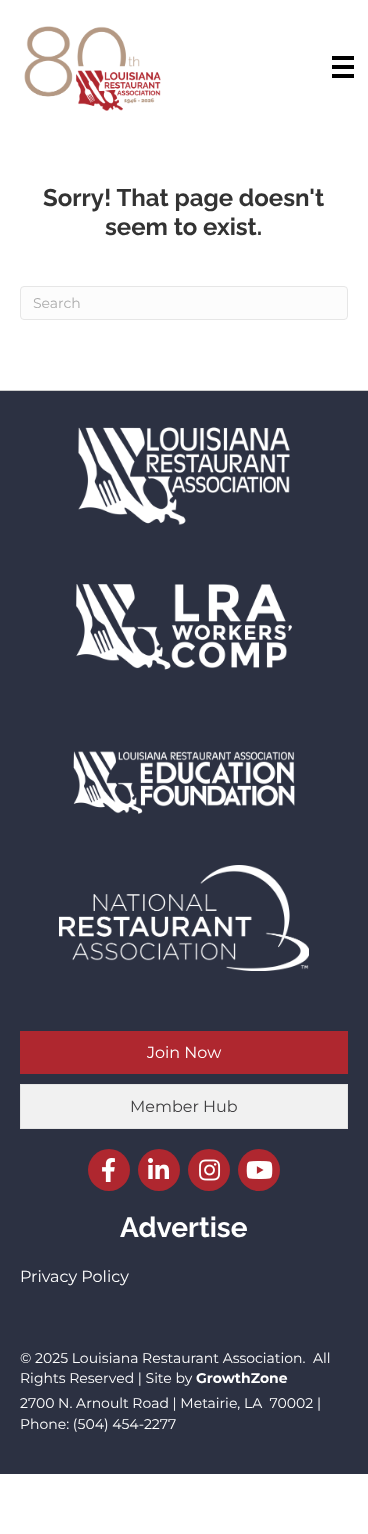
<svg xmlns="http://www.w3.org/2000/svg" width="368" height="1534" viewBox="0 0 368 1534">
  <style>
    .t1 { font: 100 24px Raleway; fill: #333; }
    .t2 { font: 14px Montserrat; fill: #acacac; }
    .t3 { font: 16px Montserrat; fill: #fff; }
    .t4 { font: 16px Montserrat; fill: #414042; }
    .t5 { font: 100 28px Raleway; fill: #fff; }
    .t6 { font: 14px Montserrat; fill: #fff; }
    .t7 { font: bold 14px Montserrat; fill: #fff; }
  </style>
  <rect width="100%" height="100%" fill="#fff"/>
  <image x="24" y="26" width="137" height="85" href="images/1.png"/>
  <rect x="332" y="56" width="22" height="4" fill="#000"/>
  <rect x="332" y="65" width="22" height="4" fill="#000"/>
  <rect x="332" y="74" width="22" height="4" fill="#000"/>
  <text x="43" y="206" class="t1">Sorry! That page doesn't</text>
  <text x="105" y="235" class="t1">seem to exist.</text>
  <rect x="20.5" y="286.5" width="327" height="33" rx="3.5" fill="#fcfcfc" stroke="#e6e6e6"/>
  <text x="33" y="308" class="t2">Search</text>
  <rect x="0" y="391" width="368" height="1083" fill="#2c3142"/>
  <rect x="0" y="390" width="368" height="1" fill="#ccc"/>
  <image x="78" y="427" width="212" height="98" href="images/2.png"/>
  <image x="76" y="584" width="216" height="86" href="images/3.png"/>
  <image x="73" y="751" width="222" height="63" href="images/4.png"/>
  <image x="59" y="865" width="250" height="106" href="images/5.png"/>
  <rect x="20" y="1031" width="328" height="43" fill="#af272f"/>
  <text x="147" y="1058" class="t3">Join Now</text>
  <rect x="20.5" y="1084.5" width="327" height="44" fill="#f1f1f1" stroke="#e5e5e5"/>
  <text x="130" y="1112" class="t4">Member Hub</text>
  <circle cx="109" cy="1170" r="21" fill="#af272f"/>
  <image x="102" y="1158" width="13" height="24" href="images/6.png"/>
  <circle cx="159" cy="1170" r="21" fill="#af272f"/>
  <image x="148" y="1158" width="21" height="21" href="images/7.png"/>
  <circle cx="209" cy="1170" r="21" fill="#af272f"/>
  <image x="199" y="1159" width="22" height="22" href="images/8.png"/>
  <circle cx="259" cy="1170" r="21" fill="#af272f"/>
  <image x="246" y="1161" width="27" height="18" href="images/9.png"/>
  <text x="120" y="1237" class="t5">Advertise</text>
  <text x="20" y="1282" class="t3">Privacy Policy</text>
  <text x="20" y="1363" class="t6">© 2025 Louisiana Restaurant Association.</text>
  <text x="313" y="1363" class="t6">All</text>
  <text x="20" y="1383" class="t6">Rights Reserved | Site by</text>
  <text x="196" y="1383" class="t7">GrowthZone</text>
  <text x="20" y="1408" class="t6" xml:space="preserve">2700 N. Arnoult Road | Metairie, LA  70002 |</text>
  <text x="20" y="1429" class="t6">Phone: (504) 454-2277</text>
</svg>
